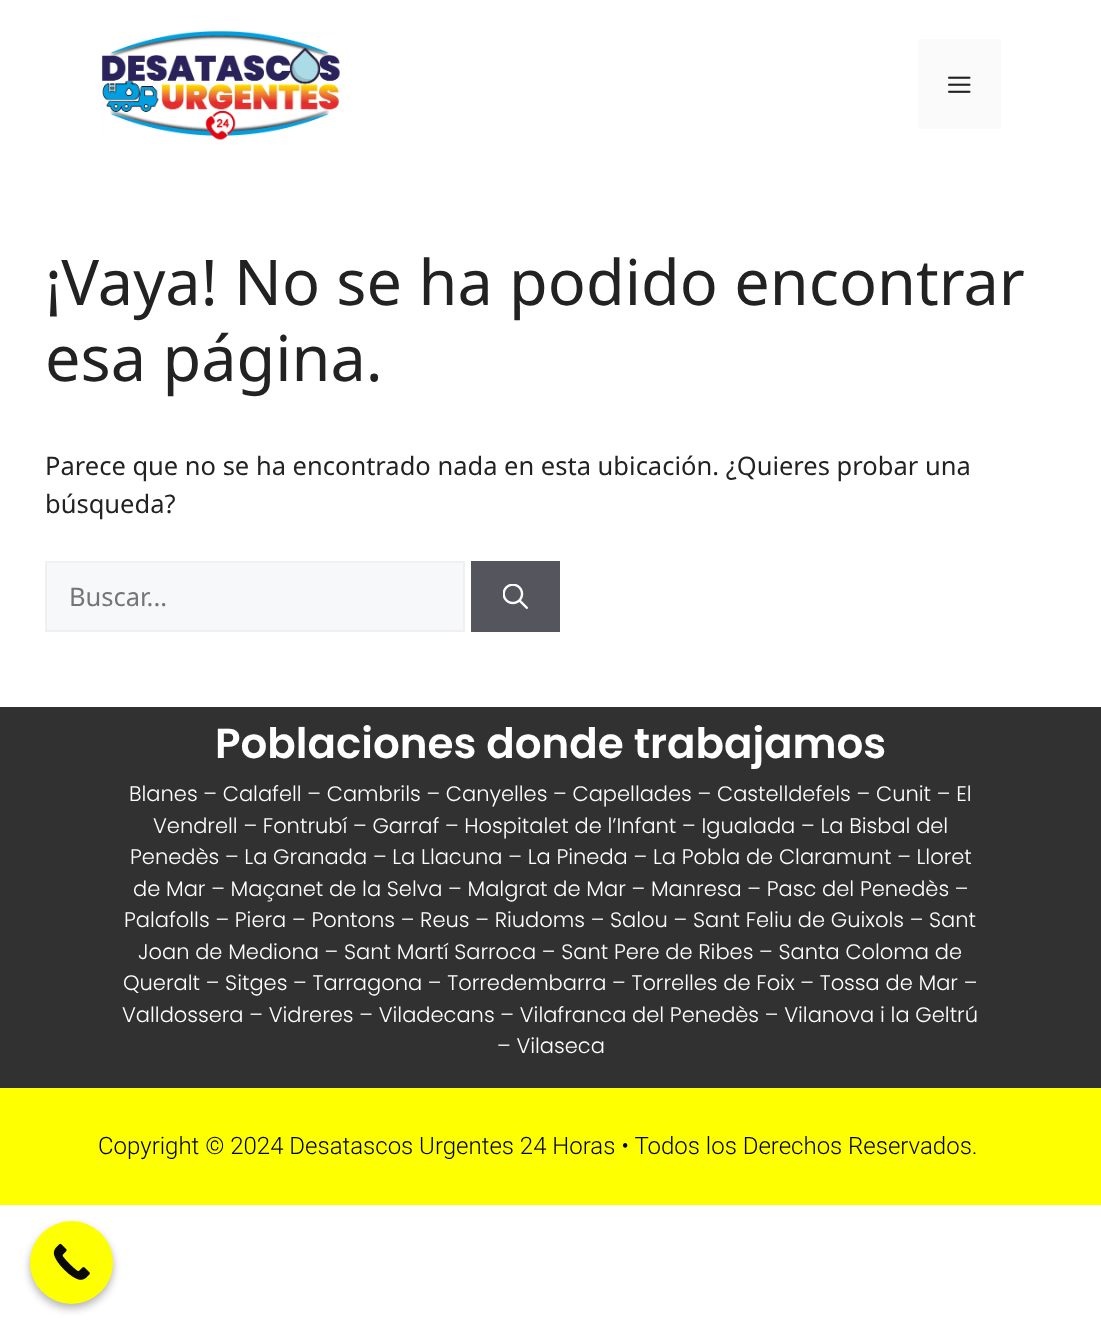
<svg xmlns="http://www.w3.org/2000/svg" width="1101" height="1325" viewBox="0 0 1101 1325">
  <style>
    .t1 { font: 63px Noto Sans; fill: #222; }
    .t2 { font: 25.5px Noto Sans; fill: #222; }
    .t3 { font: 25.5px Noto Sans; fill: #757575; }
    .t4 { font: 600 42px Poppins; fill: #fff; }
    .t5 { font: 300 21px Poppins; fill: #fff; }
    .t6 { font: 300 24px Roboto; fill: #000; }
  </style>
  <rect width="100%" height="100%" fill="#fff"/>
  <image x="101" y="31" width="239" height="109" href="images/1.png"/>
  <rect x="918" y="39" width="83" height="90" fill="#fafafa"/>
  <image x="948" y="76" width="23" height="17" href="images/2.png"/>
  <text x="45" y="305" class="t1">¡Vaya! No se ha podido encontrar</text>
  <text x="45" y="381" class="t1">esa página.</text>
  <text x="45" y="475" class="t2">Parece que no se ha encontrado nada en esta ubicación. ¿Quieres probar una</text>
  <text x="45" y="513" class="t2">búsqueda?</text>
  <rect x="46" y="562" width="418" height="69" fill="#f7f8f9" stroke="#f0f0f0" stroke-width="2"/>
  <text x="69" y="606" class="t3">Buscar...</text>
  <rect x="471" y="561" width="89" height="71" fill="#55555e"/>
  <image x="503" y="584" width="25" height="25" href="images/3.png"/>
  <rect x="0" y="707" width="1101" height="381" fill="#313131"/>
  <text x="215" y="758" class="t4">Poblaciones donde trabajamos</text>
  <text x="129" y="801" class="t5">Blanes – Calafell – Cambrils – Canyelles – Capellades – Castelldefels – Cunit – El</text>
  <text x="153" y="833" class="t5">Vendrell – Fontrubí – Garraf – Hospitalet de l’Infant – Igualada – La Bisbal del</text>
  <text x="130" y="864" class="t5">Penedès – La Granada – La Llacuna – La Pineda – La Pobla de Claramunt – Lloret</text>
  <text x="133" y="896" class="t5">de Mar – Maçanet de la Selva – Malgrat de Mar – Manresa – Pasc del Penedès –</text>
  <text x="124" y="927" class="t5">Palafolls – Piera – Pontons – Reus – Riudoms – Salou – Sant Feliu de Guixols – Sant</text>
  <text x="138" y="959" class="t5">Joan de Mediona – Sant Martí Sarroca – Sant Pere de Ribes – Santa Coloma de</text>
  <text x="123" y="990" class="t5">Queralt – Sitges – Tarragona – Torredembarra – Torrelles de Foix – Tossa de Mar –</text>
  <text x="122" y="1022" class="t5">Valldossera – Vidreres – Viladecans – Vilafranca del Penedès – Vilanova i la Geltrú</text>
  <text x="497" y="1053" class="t5">– Vilaseca</text>
  <rect x="0" y="1088" width="1101" height="117" fill="#feff00"/>
  <text x="98" y="1154" class="t6">Copyright © 2024 Desatascos Urgentes 24 Horas • Todos los Derechos Reservados.</text>
  <rect x="30" y="1226" width="83" height="82" rx="41" fill="#0000004d" filter="blur(4.5px)"/>
  <circle cx="71.5" cy="1262.5" r="41.5" fill="#feff00"/>
  <image x="53" y="1243" width="37" height="37" href="images/4.png"/>
</svg>
